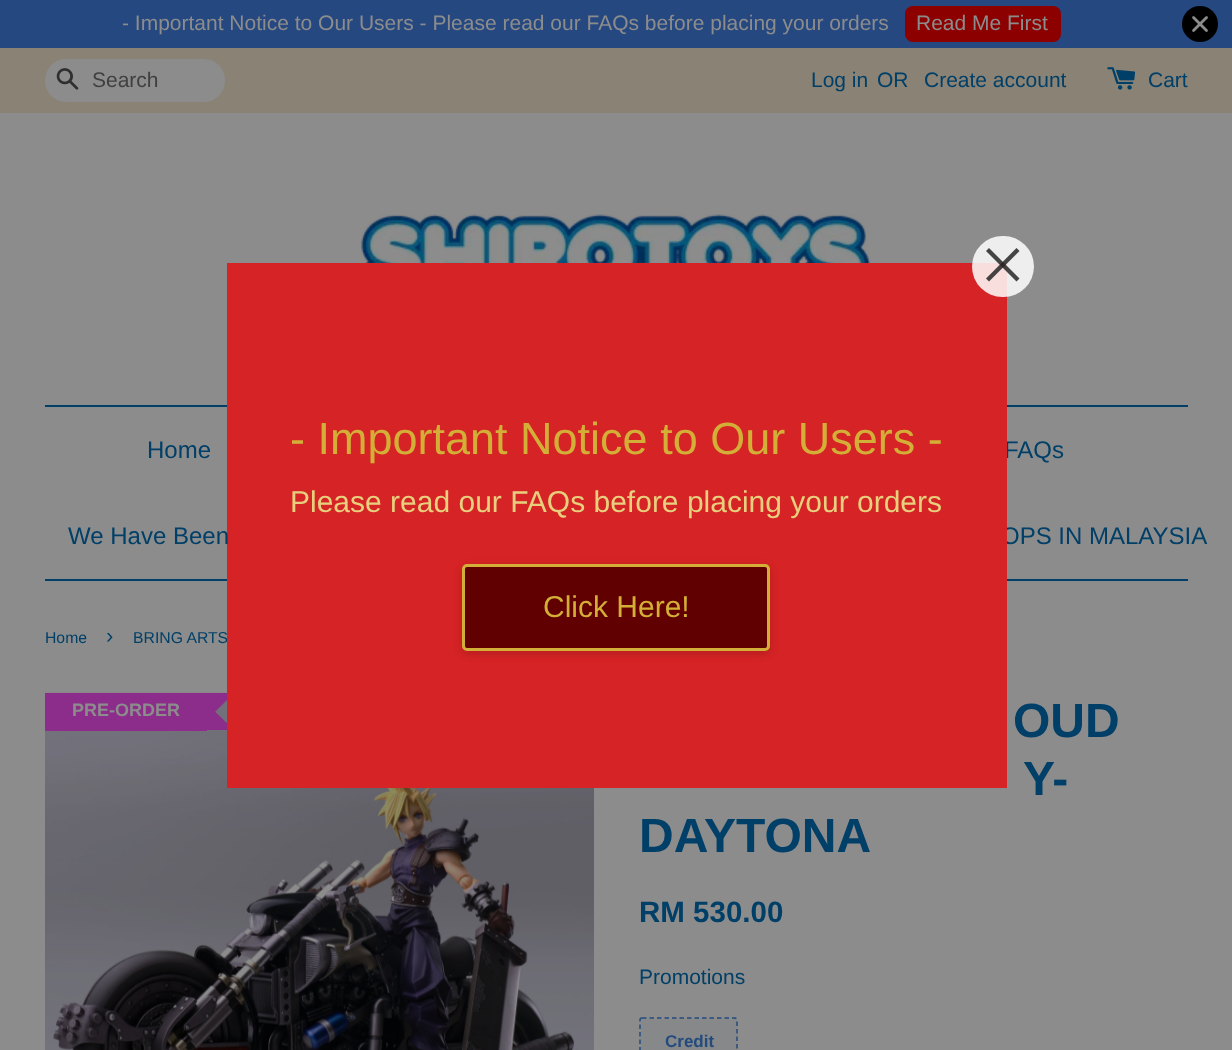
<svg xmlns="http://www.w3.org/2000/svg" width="1232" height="1050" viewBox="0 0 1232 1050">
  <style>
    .t1 { font: 21px Liberation Sans; fill: #8c8c8c; }
    .t2 { font: 21px Liberation Sans; fill: #404040; }
    .t3 { font: 21px Liberation Sans; fill: #003f67; }
    .t4 { font: 24px Liberation Sans; fill: #003f67; }
    .t5 { font: 15.75px Liberation Sans; fill: #003f67; }
    .t6 { font: 45px Liberation Sans; fill: #d4af37; }
    .t7 { font: 30px Liberation Sans; fill: #e8cf7d; }
    .t8 { font: 30px Liberation Sans; fill: #d4af37; }
    .t9 { font: 22px Liberation Sans; fill: #003f67; }
    .t10 { font: bold 18px Liberation Sans; fill: #8c8c8c; }
    .t11 { font: bold 48px Liberation Sans; fill: #003f67; }
    .t12 { font: bold 29.5px Liberation Sans; fill: #003f67; }
    .t13 { font: bold 17px Liberation Sans; fill: #234b7d; }
  </style>
  <rect width="100%" height="100%" fill="#8c8c8c"/>
  <rect x="0" y="0" width="1232" height="48" fill="#264880"/>
  <text x="122" y="30" class="t1">- Important Notice to Our Users - Please read our FAQs before placing your orders</text>
  <rect x="905" y="6" width="156" height="36" rx="8" fill="#8c0000"/>
  <text x="916" y="30" class="t1">Read Me First</text>
  <circle cx="1200" cy="24" r="18" fill="#000"/>
  <path d="M1207.5 16.5C1208 17 1208 18 1207.5 18.5L1194.5 31.5C1194 32 1193 32 1192.5 31.5C1192 31 1192 30 1192.5 29.5L1205.5 16.5C1206 16 1207 16 1207.5 16.5Z" fill="#8c8c8c"/>
  <path d="M1192.5 16.5C1193 16 1194 16 1194.5 16.5L1207.5 29.5C1208 30 1208 31 1207.5 31.5C1207 32 1206 32 1205.5 31.5L1192.5 18.5C1192 18 1192 17 1192.5 16.5Z" fill="#8c8c8c"/>
  <rect x="0" y="48" width="1232" height="65" fill="#8a8375"/>
  <rect x="45" y="59" width="180" height="43" rx="21" fill="#8c8c8c"/>
  <image x="56" y="68" width="23" height="22" href="images/1.png"/>
  <text x="92" y="87" class="t2">Search</text>
  <text x="811" y="87" class="t3">Log in</text>
  <text x="877" y="87" class="t3">OR</text>
  <text x="924" y="87" class="t3">Create account</text>
  <image x="1107" y="67" width="29" height="23" href="images/2.png"/>
  <text x="1148" y="87" class="t3">Cart</text>
  <rect x="45" y="405" width="1143" height="2" fill="#003f67"/>
  <rect x="45" y="579" width="1143" height="2" fill="#003f67"/>
  <text x="1004" y="458" class="t4">FAQs</text>
  <text x="1001" y="544" class="t4">OPS IN MALAYSIA</text>
  <text x="133" y="643" class="t5">BRING ARTS</text>
  <image x="45" y="692" width="549" height="358" href="images/4.png"/>
  <rect x="45" y="693" width="162" height="38" fill="#8c2d8b"/>
  <path d="M180 693H234L207 720Z" fill="#8c2d8b"/>
  <path d="M234 730H180L207 704Z" fill="#8c2d8b"/>
  <rect x="227" y="263" width="780" height="525" fill="#d62325"/>
  <rect x="972" y="236" width="62" height="61" rx="30.5" fill="#ffffffd9"/>
  <path d="M1016.5 248L1019.5 251L989 281.5L986 278.5Z" fill="#262626d9"/>
  <path d="M986 251L989 248L1019.5 278.5L1016.5 281.5Z" fill="#262626d9"/>
  <text x="290" y="454" class="t6">- Important Notice to Our Users -</text>
  <text x="290" y="512" class="t7">Please read our FAQs before placing your orders</text>
  <rect x="462" y="567" width="308" height="87" rx="5" fill="#00000026" filter="blur(4px)"/>
  <rect x="463.5" y="565.5" width="305" height="84" rx="3.5" fill="#610000" stroke="#d4af37" stroke-width="3"/>
  <text x="543" y="617" class="t8">Click Here!</text>
  <image x="361" y="214" width="510" height="49" href="images/3.png"/>
  <text x="147" y="458" class="t4">Home</text>
  <text x="68" y="544" class="t4">We Have Been</text>
  <text x="45" y="643" class="t5">Home</text>
  <text x="106" y="643" class="t9">›</text>
  <text x="72" y="716" class="t10">PRE-ORDER</text>
  <text x="1013" y="737" class="t11">OUD</text>
  <text x="1023" y="795" class="t11">Y-</text>
  <text x="639" y="852" class="t11">DAYTONA</text>
  <text x="639" y="922" class="t12">RM 530.00</text>
  <text x="639" y="984" class="t3">Promotions</text>
  <path d="M642 1018H735C736 1018 737 1019 737 1020V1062C737 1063 736 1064 735 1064H642C641 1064 640 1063 640 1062V1020C640 1019 641 1018 642 1018Z" fill="none" stroke="#234b7d" stroke-width="1.5" stroke-dasharray="4.5 3"/>
  <rect x="641" y="1019" width="96" height="31" fill="#234b7d0d"/>
  <text x="665" y="1047" class="t13">Credit</text>
</svg>
